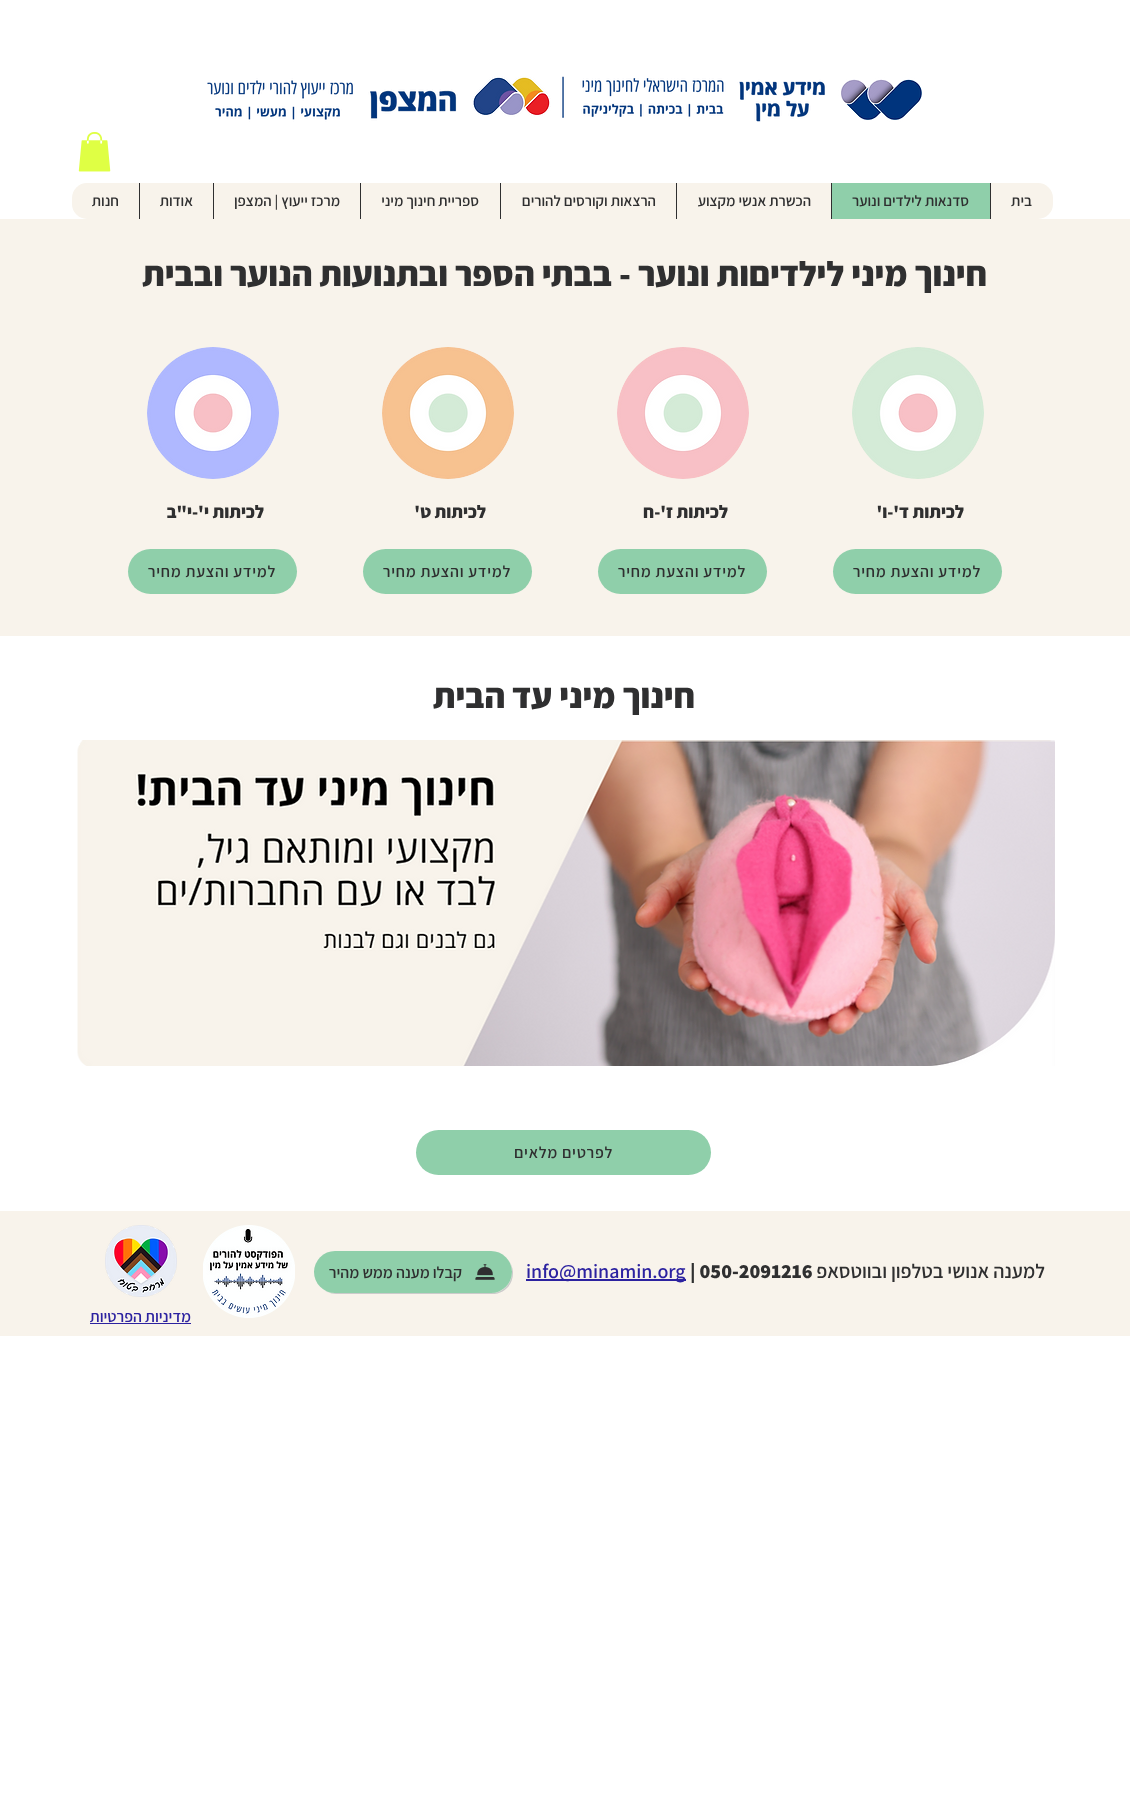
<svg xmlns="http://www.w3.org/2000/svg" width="1130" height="1817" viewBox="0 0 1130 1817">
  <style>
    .t1 { font: 600 15px Assistant; direction: rtl; fill: #2f2f30; }
    .t2 { font: 800 35px Assistant; direction: rtl; fill: #2f2f30; }
    .t3 { font: 800 18px Assistant; direction: rtl; fill: #2f2f30; }
    .t4 { font: 600 16px Assistant; letter-spacing: 0.75px; direction: rtl; fill: #2f2f30; }
    .t5 { font: 600 20px Assistant; direction: rtl; fill: #2f2f30; }
    .t6 { font: 800 20px Assistant; fill: #2f2f30; }
    .t7 { font: 600 20px Assistant; fill: #2c22a0; }
    .t8 { font: 600 16px Assistant; direction: rtl; fill: #2f2f30; }
    .t9 { font: 600 16px Assistant; direction: rtl; fill: #2c22a0; }
  </style>
  <rect width="100%" height="100%" fill="#fff"/>
  <image x="207" y="76" width="715" height="46" href="images/1.png"/>
  <image x="78" y="132" width="33" height="40" href="images/2.png"/>
  <rect x="72" y="183" width="981" height="36" rx="15" fill="#f8f3eb"/>
  <rect x="990" y="183" width="1" height="36" fill="#2f2f30"/>
  <text x="1032" y="206" class="t1">בית</text>
  <rect x="832" y="183" width="158" height="36" fill="#8fcfaa"/>
  <rect x="831" y="183" width="1" height="36" fill="#2f2f30"/>
  <text x="969" y="206" class="t1">סדנאות לילדים ונוער</text>
  <rect x="676" y="183" width="1" height="36" fill="#2f2f30"/>
  <text x="811" y="206" class="t1">הכשרת אנשי מקצוע</text>
  <rect x="500" y="183" width="1" height="36" fill="#2f2f30"/>
  <text x="656" y="206" class="t1">הרצאות וקורסים להורים</text>
  <rect x="360" y="183" width="1" height="36" fill="#2f2f30"/>
  <text x="479" y="206" class="t1">ספריית חינוך מיני</text>
  <rect x="213" y="183" width="1" height="36" fill="#2f2f30"/>
  <text x="340" y="206" class="t1">מרכז ייעוץ | המצפן</text>
  <rect x="139" y="183" width="1" height="36" fill="#2f2f30"/>
  <text x="193" y="206" class="t1">אודות</text>
  <text x="119" y="206" class="t1">חנות</text>
  <rect x="0" y="219" width="1130" height="417" fill="#f8f3eb"/>
  <text x="987" y="286" class="t2">חינוך מיני לילדיםות ונוער - בבתי הספר ובתנועות הנוער ובבית</text>
  <image x="852" y="347" width="132" height="132" href="images/3.png"/>
  <text x="964" y="518" class="t3">לכיתות ד'-ו'</text>
  <rect x="833" y="549" width="169" height="45" rx="22.5" fill="#8fcfaa"/>
  <text x="981" y="577" class="t4">למידע והצעת מחיר</text>
  <image x="617" y="347" width="132" height="132" href="images/4.png"/>
  <text x="728" y="518" class="t3">לכיתות ז'-ח</text>
  <rect x="598" y="549" width="169" height="45" rx="22.5" fill="#8fcfaa"/>
  <text x="746" y="577" class="t4">למידע והצעת מחיר</text>
  <image x="382" y="347" width="132" height="132" href="images/5.png"/>
  <text x="486" y="518" class="t3">לכיתות ט'</text>
  <rect x="363" y="549" width="169" height="45" rx="22.5" fill="#8fcfaa"/>
  <text x="511" y="577" class="t4">למידע והצעת מחיר</text>
  <image x="147" y="347" width="132" height="132" href="images/6.png"/>
  <text x="264" y="518" class="t3">לכיתות י'-י"ב</text>
  <rect x="128" y="549" width="169" height="45" rx="22.5" fill="#8fcfaa"/>
  <text x="276" y="577" class="t4">למידע והצעת מחיר</text>
  <text x="695" y="708" class="t2">חינוך מיני עד הבית</text>
  <image x="77" y="740" width="978" height="326" href="images/7.png"/>
  <rect x="416" y="1130" width="295" height="45" rx="22.5" fill="#8fcfaa"/>
  <text x="613" y="1158" class="t4">לפרטים מלאים</text>
  <rect x="0" y="1211" width="1130" height="125" fill="#f8f3eb"/>
  <text x="1045" y="1278" class="t5">למענה אנושי בטלפון ובווטסאפ</text>
  <text x="690" y="1278" class="t6">| 050-2091216</text>
  <rect x="526" y="1279" width="160" height="2" fill="#2c22a0"/>
  <text x="526" y="1278" class="t7">info@minamin.org</text>
  <path d="M321 1287C324 1291 330 1294 336 1294H492C504 1294 513 1285 513 1273C513 1267 510 1261 506 1258C510 1261 512 1266 512 1272C512 1284 503 1293 491 1293H335C329 1293 324 1291 321 1287Z" fill="#cbcbcb"/>
  <rect x="314" y="1251" width="198" height="42" rx="21" fill="#8fcfaa"/>
  <image x="475" y="1264" width="20" height="16" href="images/8.png"/>
  <text x="462" y="1278" class="t8">קבלו מענה ממש מהיר</text>
  <image x="203" y="1225" width="92" height="93" href="images/9.png"/>
  <image x="105" y="1225" width="72" height="72" href="images/10.png"/>
  <text x="191" y="1322" class="t9">מדיניות הפרטיות</text>
  <rect x="90" y="1323" width="101" height="1" fill="#2c22a0"/>
</svg>
